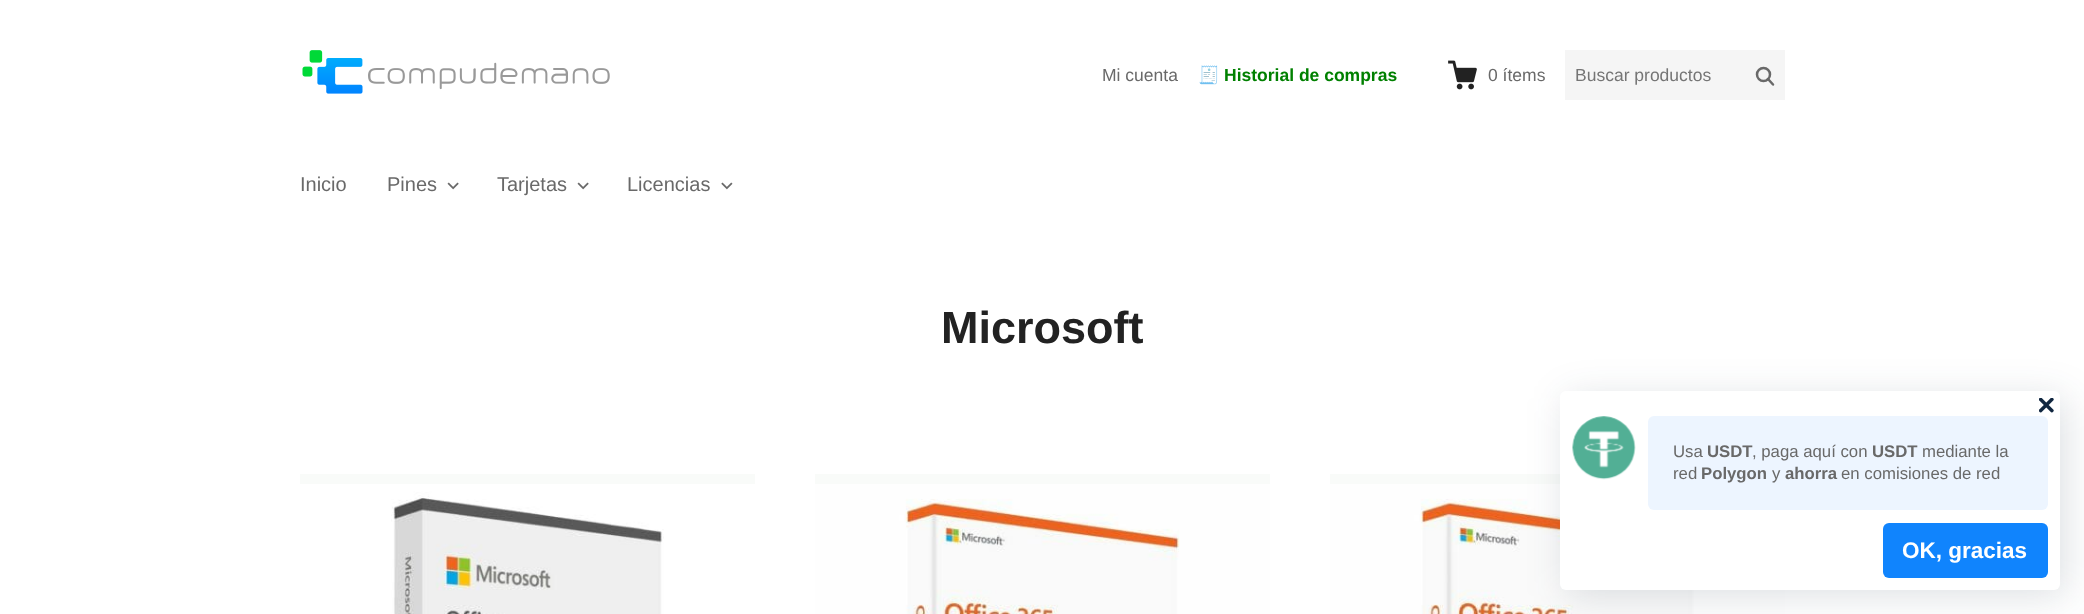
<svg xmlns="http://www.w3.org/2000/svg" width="2084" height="614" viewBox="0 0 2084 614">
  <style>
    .t1 { font: 17.5px Liberation Sans; fill: #696969; }
    .t2 { font: 17.5px Noto Color Emoji; fill: #696969; }
    .t3 { font: bold 17.5px Liberation Sans; fill: #008000; }
    .t4 { font: 17.5px Liberation Sans; fill: #757575; }
    .t5 { font: 20px Liberation Sans; fill: #696969; }
    .t6 { font: bold 45px Liberation Sans; fill: #222; }
    .t7 { font: 16.75px Liberation Sans; fill: #696969; }
    .t8 { font: bold 16.75px Liberation Sans; fill: #696969; }
    .t9 { font: bold 22.5px Liberation Sans; fill: #fff; }
  </style>
  <rect width="100%" height="100%" fill="#fff"/>
  <image x="302" y="50" width="308" height="44" href="images/1.png"/>
  <text x="1102" y="81" class="t1">Mi cuenta</text>
  <text x="1198" y="81" class="t2">🧾</text>
  <text x="1224" y="81" class="t3">Historial de compras</text>
  <image x="1448" y="60" width="29" height="30" href="images/2.png"/>
  <text x="1488" y="81" class="t1">0 ítems</text>
  <rect x="1565" y="50" width="220" height="50" fill="#f5f5f5"/>
  <text x="1575" y="81" class="t4">Buscar productos</text>
  <circle cx="1763.5" cy="74.5" r="6.5" fill="none" stroke="#696969" stroke-width="2.5"/>
  <path d="M1768 79L1773 84.5" fill="none" stroke="#696969" stroke-width="2.5" stroke-linecap="round" stroke-linejoin="round"/>
  <text x="300" y="191" class="t5">Inicio</text>
  <text x="387" y="191" class="t5">Pines</text>
  <image x="447" y="182" width="12" height="8" href="images/3.png"/>
  <text x="497" y="191" class="t5">Tarjetas</text>
  <image x="577" y="182" width="12" height="8" href="images/3.png"/>
  <text x="627" y="191" class="t5">Licencias</text>
  <image x="721" y="182" width="12" height="8" href="images/4.png"/>
  <text x="941" y="343" class="t6">Microsoft</text>
  <rect x="300" y="474" width="455" height="10" fill="#f9fbf9"/>
  <image x="300" y="484" width="455" height="130" href="images/5.png"/>
  <rect x="815" y="474" width="455" height="10" fill="#f9fbf9"/>
  <image x="815" y="484" width="455" height="130" href="images/6.png"/>
  <rect x="1330" y="474" width="230" height="10" fill="#f9fbf9"/>
  <image x="1330" y="484" width="455" height="130" href="images/7.png"/>
  <rect x="1566" y="398" width="500" height="198" rx="6" fill="#182d4626" filter="blur(19px)"/>
  <rect x="1560" y="391" width="500" height="199" rx="6" fill="#fff"/>
  <image x="2039" y="398" width="15" height="15" href="images/8.png"/>
  <image x="1572" y="416" width="64" height="64" href="images/9.png"/>
  <rect x="1648" y="416" width="400" height="94" rx="6" fill="#edf5ff"/>
  <text x="1673" y="457" class="t7">Usa</text>
  <text x="1707" y="457" class="t8">USDT</text>
  <text x="1752" y="457" class="t7">, paga aquí con</text>
  <text x="1872" y="457" class="t8">USDT</text>
  <text x="1922" y="457" class="t7">mediante la</text>
  <text x="1673" y="479" class="t7">red</text>
  <text x="1701" y="479" class="t8">Polygon</text>
  <text x="1772" y="479" class="t7">y</text>
  <text x="1785" y="479" class="t8">ahorra</text>
  <text x="1841" y="479" class="t7">en comisiones de red</text>
  <rect x="1883" y="523" width="165" height="55" rx="6" fill="#1084fd"/>
  <text x="1902" y="558" class="t9">OK, gracias</text>
</svg>
